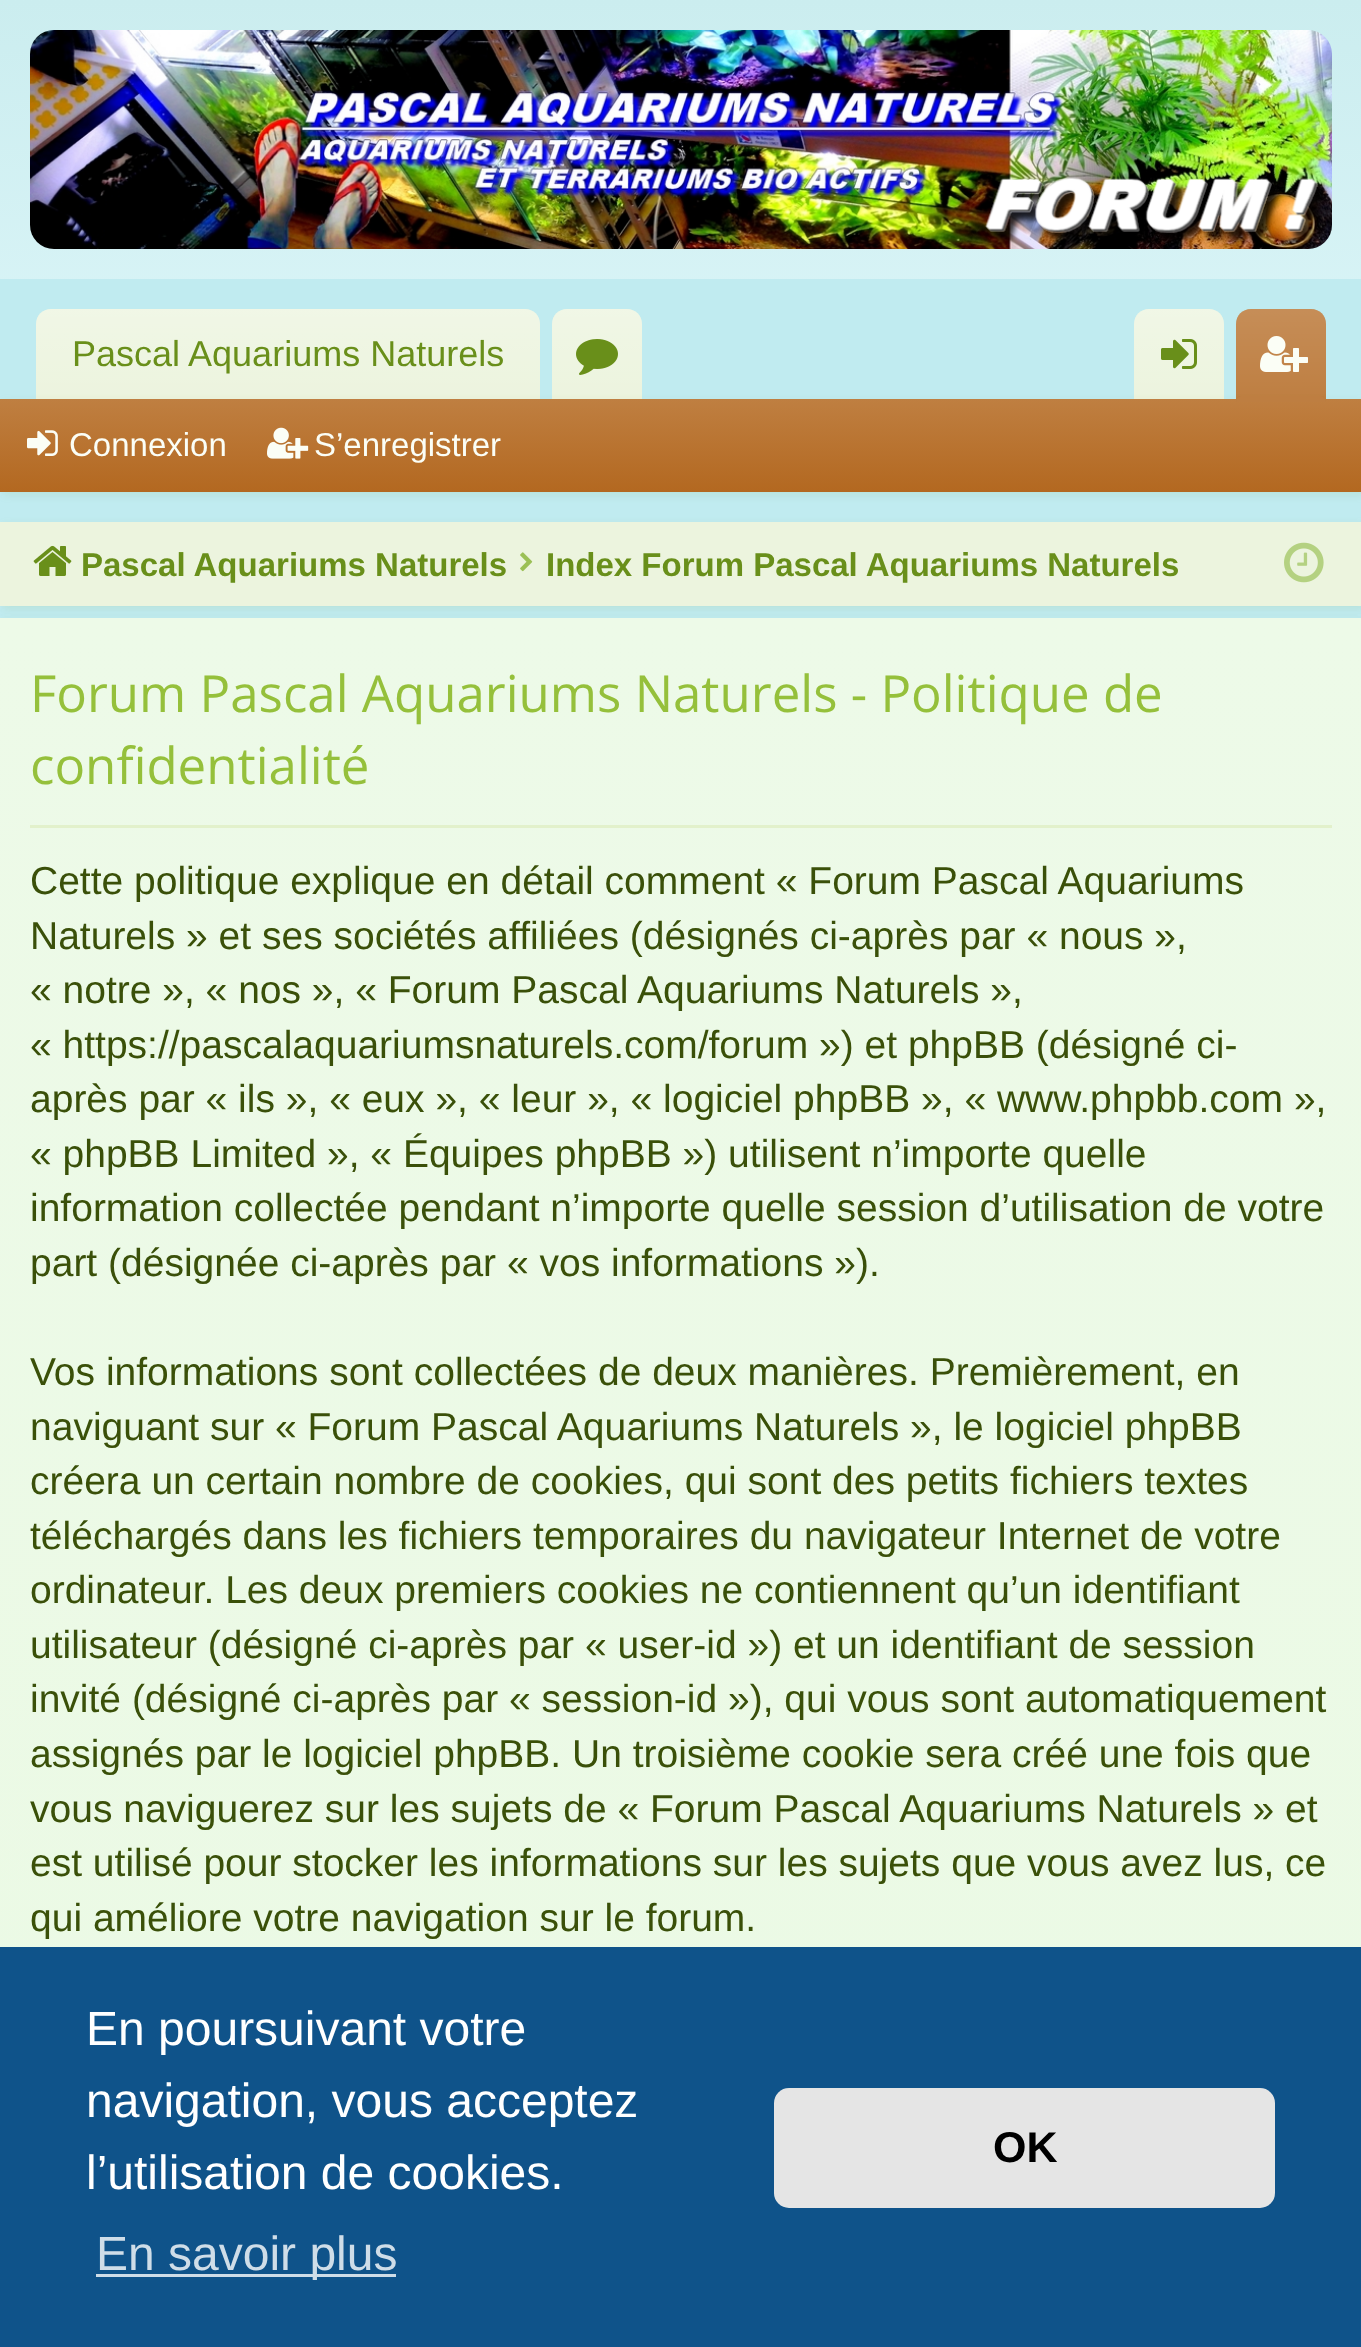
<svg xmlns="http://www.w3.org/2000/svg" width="1361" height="2347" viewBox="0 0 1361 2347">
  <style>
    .t1 { font: 36px Liberation Sans; fill: #698f1a; }
    .t2 { font: 33px Liberation Sans; fill: #fbfef6; }
    .t3 { font: bold 33px Liberation Sans; fill: #698f1a; }
    .t4 { font: 51px Open Sans; fill: #95c03b; }
    .t5 { font: 39px Liberation Sans; fill: #3a5009; }
    .t6 { font: 48px Liberation Sans; fill: #fff; }
    .t7 { font: 48px Liberation Sans; fill: #cfdde8; }
    .t8 { font: bold 43px Liberation Sans; fill: #000; }
  </style>
  <defs>
    <linearGradient id="g1" gradientUnits="userSpaceOnUse" x1="681" y1="0" x2="681" y2="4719"><stop offset="0" stop-color="#cbedef"/><stop offset="0.13" stop-color="#e4fafd"/><stop offset="1" stop-color="#fff"/></linearGradient>
    <linearGradient id="g2" gradientUnits="userSpaceOnUse" x1="288" y1="309" x2="288" y2="399"><stop offset="0" stop-color="#fff" stop-opacity="0.25"/><stop offset="1" stop-color="#fff" stop-opacity="0"/></linearGradient>
    <linearGradient id="g3" gradientUnits="userSpaceOnUse" x1="597" y1="309" x2="597" y2="399"><stop offset="0" stop-color="#fff" stop-opacity="0.25"/><stop offset="1" stop-color="#fff" stop-opacity="0"/></linearGradient>
    <linearGradient id="g4" gradientUnits="userSpaceOnUse" x1="1179" y1="309" x2="1179" y2="399"><stop offset="0" stop-color="#fff" stop-opacity="0.25"/><stop offset="1" stop-color="#fff" stop-opacity="0"/></linearGradient>
    <linearGradient id="g5" gradientUnits="userSpaceOnUse" x1="1281" y1="309" x2="1281" y2="399"><stop offset="0" stop-color="#fff" stop-opacity="0.25"/><stop offset="1" stop-color="#fff" stop-opacity="0.15"/></linearGradient>
    <linearGradient id="g6" gradientUnits="userSpaceOnUse" x1="681" y1="399" x2="681" y2="492"><stop offset="0" stop-color="#bf7f41"/><stop offset="1" stop-color="#b36820"/></linearGradient>
    <linearGradient id="g7" gradientUnits="userSpaceOnUse" x1="681" y1="618" x2="681" y2="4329"><stop offset="0" stop-color="#edfae8"/><stop offset="1" stop-color="#e8f9e0"/></linearGradient>
  </defs>
  <rect width="100%" height="100%" fill="#fff"/>
  <rect x="0" y="0" width="1361" height="279" fill="url(#g1)"/>
  <image x="30" y="30" width="1302" height="219" href="images/1.png"/>
  <rect x="0" y="279" width="1361" height="339" fill="#c0ebf0"/>
  <path d="M51 309H525C533.5 309 540 315.5 540 324V399H36V324C36 315.5 42.5 309 51 309Z" fill="#ecf4de"/>
  <path d="M51 309H525C533.5 309 540 315.5 540 324V399H36V324C36 315.5 42.5 309 51 309Z" fill="url(#g2)"/>
  <text x="72" y="366" class="t1">Pascal Aquariums Naturels</text>
  <path d="M567 309H627C635.5 309 642 315.5 642 324V399H552V324C552 315.5 558.5 309 567 309Z" fill="#ecf4de"/>
  <path d="M567 309H627C635.5 309 642 315.5 642 324V399H552V324C552 315.5 558.5 309 567 309Z" fill="url(#g3)"/>
  <image x="576" y="339" width="42" height="36" href="images/2.png"/>
  <path d="M1149 309H1209C1217.5 309 1224 315.5 1224 324V399H1134V324C1134 315.5 1140.5 309 1149 309Z" fill="#ecf4de"/>
  <path d="M1149 309H1209C1217.5 309 1224 315.5 1224 324V399H1134V324C1134 315.5 1140.5 309 1149 309Z" fill="url(#g4)"/>
  <image x="1161" y="339" width="36" height="30" href="images/3.png"/>
  <path d="M1251 309H1311C1319.5 309 1326 315.5 1326 324V399H1236V324C1236 315.5 1242.5 309 1251 309Z" fill="#b36820"/>
  <path d="M1251 309H1311C1319.5 309 1326 315.5 1326 324V399H1236V324C1236 315.5 1242.5 309 1251 309Z" fill="url(#g5)"/>
  <image x="1260" y="336" width="48" height="36" href="images/4.png"/>
  <rect x="3" y="402" width="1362" height="93" fill="#698f1a1a" filter="blur(4.5px)"/>
  <rect x="0" y="399" width="1361" height="93" fill="url(#g6)"/>
  <path d="M1242 396H1320C1323.5 396 1326 398.5 1326 402H1236C1236 398.5 1238.5 396 1242 396Z" fill="#b36820"/>
  <path d="M1242 396H1320C1323.5 396 1326 398.5 1326 402H1236C1236 398.5 1238.5 396 1242 396Z" fill="#ffffff26"/>
  <image x="27" y="430" width="31" height="26" href="images/5.png"/>
  <text x="69" y="456" class="t2">Connexion</text>
  <image x="267" y="427" width="42" height="32" href="images/6.png"/>
  <text x="314" y="456" class="t2">S’enregistrer</text>
  <rect x="3" y="525" width="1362" height="84" fill="#698f1a1a" filter="blur(4.5px)"/>
  <rect x="0" y="522" width="1361" height="84" fill="#ecf4de"/>
  <image x="33" y="545" width="39" height="31" href="images/7.png"/>
  <text x="81" y="576" class="t3">Pascal Aquariums Naturels</text>
  <image x="520" y="552" width="13" height="20" href="images/8.png"/>
  <text x="546" y="576" class="t3">Index Forum Pascal Aquariums Naturels</text>
  <image x="1284" y="542" width="40" height="41" href="images/9.png"/>
  <rect x="3" y="621" width="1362" height="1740" fill="#698f1a1a" filter="blur(4.5px)"/>
  <rect x="0" y="618" width="1361" height="1329" fill="url(#g7)"/>
  <rect x="30" y="825" width="1302" height="3" fill="#e2f1cb"/>
  <text x="30" y="712" class="t4">Forum Pascal Aquariums Naturels - Politique de</text>
  <text x="30" y="784" class="t4">confidentialité</text>
  <text x="30" y="894" class="t5">Cette politique explique en détail comment « Forum Pascal Aquariums</text>
  <text x="30" y="949" class="t5">Naturels » et ses sociétés affiliées (désignés ci-après par « nous »,</text>
  <text x="30" y="1003" class="t5">« notre », « nos », « Forum Pascal Aquariums Naturels »,</text>
  <text x="30" y="1058" class="t5">« https://pascalaquariumsnaturels.com/forum ») et phpBB (désigné ci-</text>
  <text x="30" y="1112" class="t5">après par « ils », « eux », « leur », « logiciel phpBB », « www.phpbb.com »,</text>
  <text x="30" y="1167" class="t5">« phpBB Limited », « Équipes phpBB ») utilisent n’importe quelle</text>
  <text x="30" y="1221" class="t5">information collectée pendant n’importe quelle session d’utilisation de votre</text>
  <text x="30" y="1276" class="t5">part (désignée ci-après par « vos informations »).</text>
  <text x="30" y="1385" class="t5">Vos informations sont collectées de deux manières. Premièrement, en</text>
  <text x="30" y="1440" class="t5">naviguant sur « Forum Pascal Aquariums Naturels », le logiciel phpBB</text>
  <text x="30" y="1494" class="t5">créera un certain nombre de cookies, qui sont des petits fichiers textes</text>
  <text x="30" y="1549" class="t5">téléchargés dans les fichiers temporaires du navigateur Internet de votre</text>
  <text x="30" y="1603" class="t5">ordinateur. Les deux premiers cookies ne contiennent qu’un identifiant</text>
  <text x="30" y="1658" class="t5">utilisateur (désigné ci-après par « user-id ») et un identifiant de session</text>
  <text x="30" y="1712" class="t5">invité (désigné ci-après par « session-id »), qui vous sont automatiquement</text>
  <text x="30" y="1767" class="t5">assignés par le logiciel phpBB. Un troisième cookie sera créé une fois que</text>
  <text x="30" y="1822" class="t5">vous naviguerez sur les sujets de « Forum Pascal Aquariums Naturels » et</text>
  <text x="30" y="1876" class="t5">est utilisé pour stocker les informations sur les sujets que vous avez lus, ce</text>
  <text x="30" y="1931" class="t5">qui améliore votre navigation sur le forum.</text>
  <rect x="0" y="1947" width="1361" height="400" fill="#0f538a"/>
  <text x="86" y="2045" class="t6">En poursuivant votre</text>
  <text x="86" y="2117" class="t6">navigation, vous acceptez</text>
  <text x="86" y="2189" class="t6">l’utilisation de cookies.</text>
  <rect x="96" y="2274" width="300" height="3" fill="#cfdde8"/>
  <text x="96" y="2270" class="t7">En savoir plus</text>
  <rect x="774" y="2088" width="501" height="120" rx="15" fill="#e5e5e5"/>
  <text x="993" y="2162" class="t8">OK</text>
</svg>
